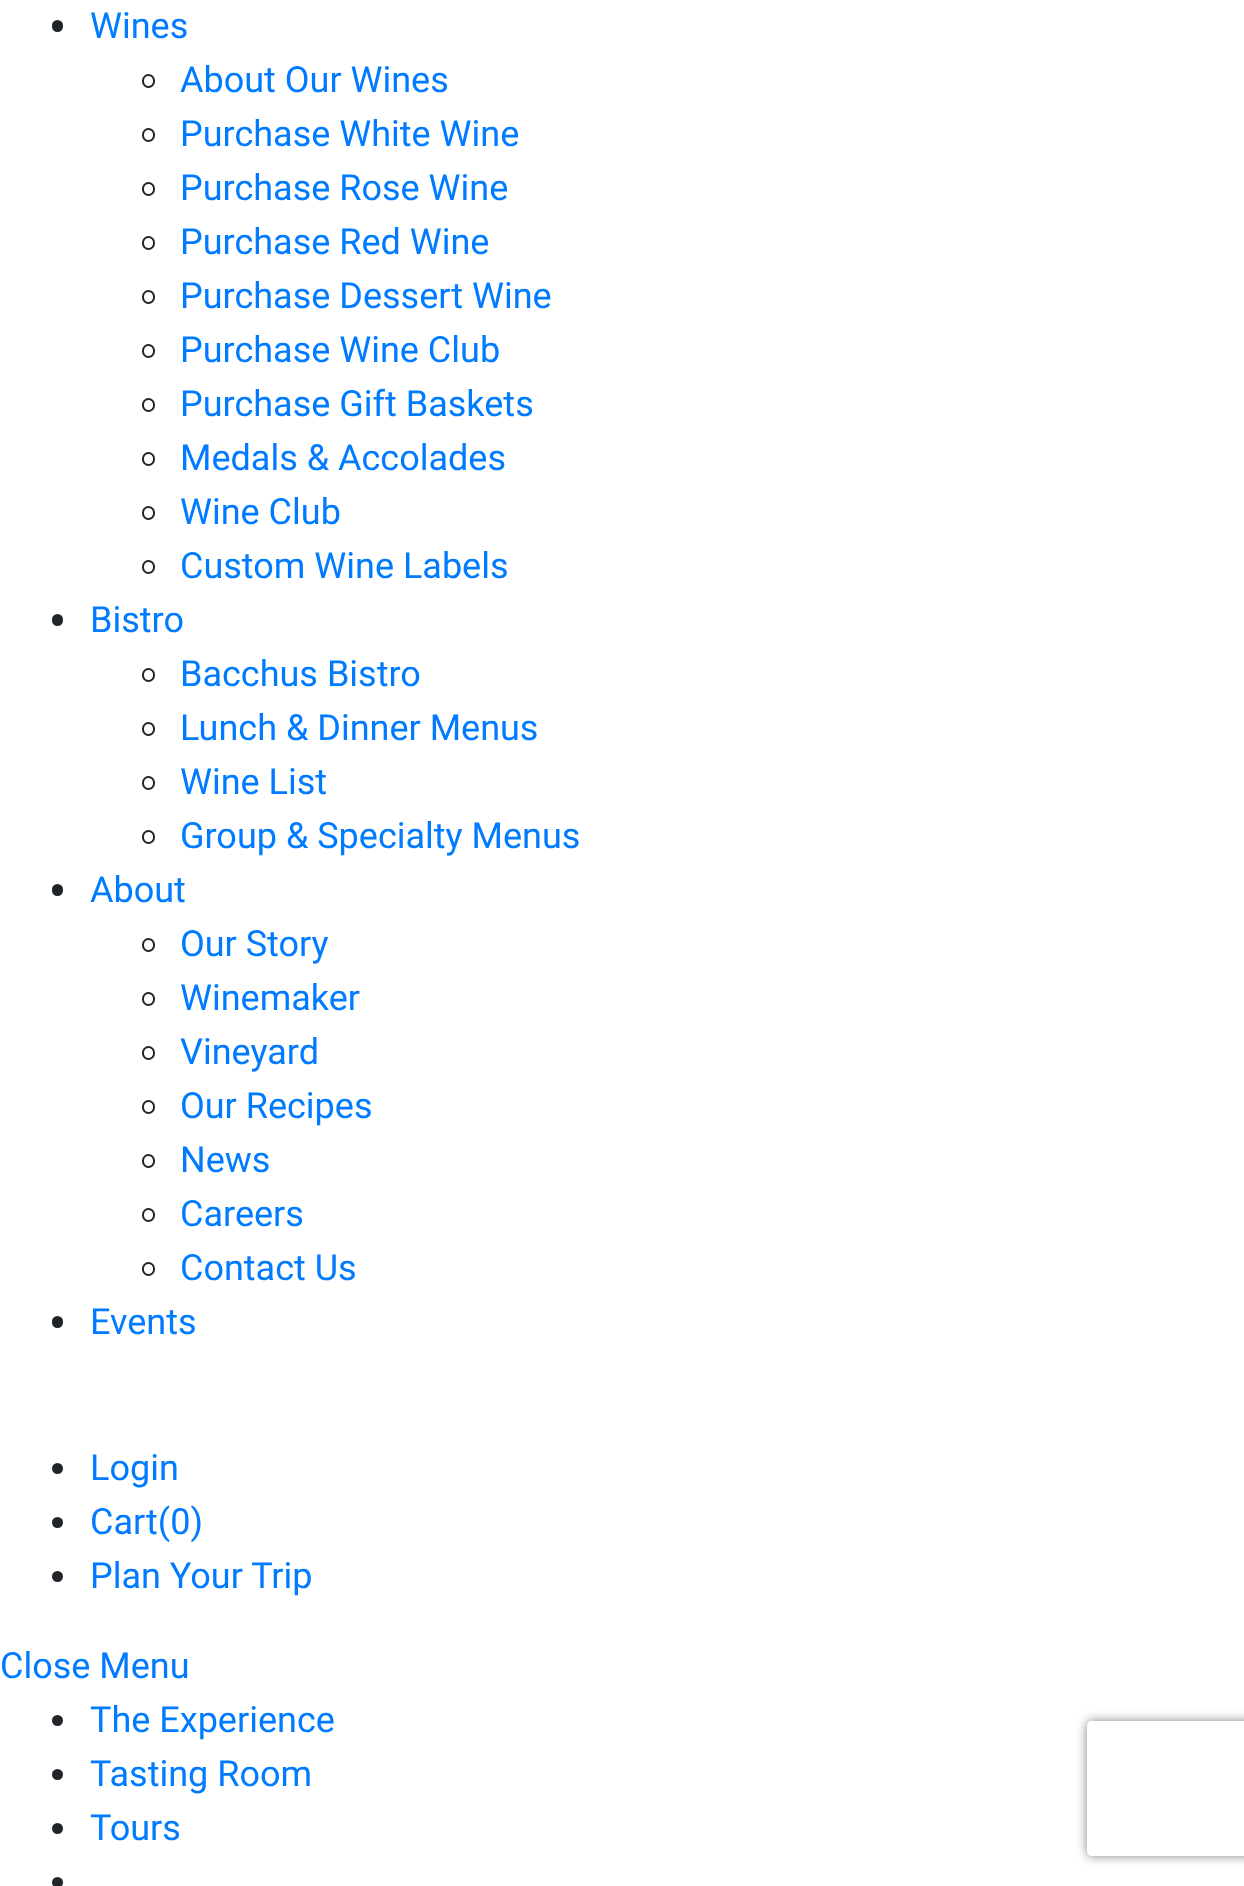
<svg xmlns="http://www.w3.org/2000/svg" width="1244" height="1886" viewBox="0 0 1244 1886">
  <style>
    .t1 { font: 36px Roboto; fill: #007bff; }
  </style>
  <defs>
    <clipPath id="clip1"><path d="M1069 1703H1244V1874H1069ZM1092 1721H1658C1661 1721 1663 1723 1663 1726V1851C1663 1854 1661 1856 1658 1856H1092C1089 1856 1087 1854 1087 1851V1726C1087 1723 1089 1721 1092 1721Z" clip-rule="evenodd"/></clipPath>
  </defs>
  <rect width="100%" height="100%" fill="#fff"/>
  <rect x="52" y="20" width="11" height="12" rx="5.5" fill="#212529"/>
  <text x="90" y="38" class="t1">Wines</text>
  <rect x="143" y="75" width="11" height="12" rx="5.5" fill="none" stroke="#212529" stroke-width="2"/>
  <text x="180" y="92" class="t1">About Our Wines</text>
  <rect x="143" y="129" width="11" height="12" rx="5.5" fill="none" stroke="#212529" stroke-width="2"/>
  <text x="180" y="146" class="t1">Purchase White Wine</text>
  <rect x="143" y="183" width="11" height="12" rx="5.5" fill="none" stroke="#212529" stroke-width="2"/>
  <text x="180" y="200" class="t1">Purchase Rose Wine</text>
  <rect x="143" y="237" width="11" height="12" rx="5.5" fill="none" stroke="#212529" stroke-width="2"/>
  <text x="180" y="254" class="t1">Purchase Red Wine</text>
  <rect x="143" y="291" width="11" height="12" rx="5.5" fill="none" stroke="#212529" stroke-width="2"/>
  <text x="180" y="308" class="t1">Purchase Dessert Wine</text>
  <rect x="143" y="345" width="11" height="12" rx="5.5" fill="none" stroke="#212529" stroke-width="2"/>
  <text x="180" y="362" class="t1">Purchase Wine Club</text>
  <rect x="143" y="399" width="11" height="12" rx="5.5" fill="none" stroke="#212529" stroke-width="2"/>
  <text x="180" y="416" class="t1">Purchase Gift Baskets</text>
  <rect x="143" y="453" width="11" height="12" rx="5.5" fill="none" stroke="#212529" stroke-width="2"/>
  <text x="180" y="470" class="t1">Medals &amp; Accolades</text>
  <rect x="143" y="507" width="11" height="12" rx="5.5" fill="none" stroke="#212529" stroke-width="2"/>
  <text x="180" y="524" class="t1">Wine Club</text>
  <rect x="143" y="561" width="11" height="12" rx="5.5" fill="none" stroke="#212529" stroke-width="2"/>
  <text x="180" y="578" class="t1">Custom Wine Labels</text>
  <rect x="52" y="614" width="11" height="12" rx="5.5" fill="#212529"/>
  <text x="90" y="632" class="t1">Bistro</text>
  <rect x="143" y="669" width="11" height="12" rx="5.5" fill="none" stroke="#212529" stroke-width="2"/>
  <text x="180" y="686" class="t1">Bacchus Bistro</text>
  <rect x="143" y="723" width="11" height="12" rx="5.5" fill="none" stroke="#212529" stroke-width="2"/>
  <text x="180" y="740" class="t1">Lunch &amp; Dinner Menus</text>
  <rect x="143" y="777" width="11" height="12" rx="5.5" fill="none" stroke="#212529" stroke-width="2"/>
  <text x="180" y="794" class="t1">Wine List</text>
  <rect x="143" y="831" width="11" height="12" rx="5.5" fill="none" stroke="#212529" stroke-width="2"/>
  <text x="180" y="848" class="t1">Group &amp; Specialty Menus</text>
  <rect x="52" y="884" width="11" height="12" rx="5.5" fill="#212529"/>
  <text x="90" y="902" class="t1">About</text>
  <rect x="143" y="939" width="11" height="12" rx="5.5" fill="none" stroke="#212529" stroke-width="2"/>
  <text x="180" y="956" class="t1">Our Story</text>
  <rect x="143" y="993" width="11" height="12" rx="5.5" fill="none" stroke="#212529" stroke-width="2"/>
  <text x="180" y="1010" class="t1">Winemaker</text>
  <rect x="143" y="1047" width="11" height="12" rx="5.5" fill="none" stroke="#212529" stroke-width="2"/>
  <text x="180" y="1064" class="t1">Vineyard</text>
  <rect x="143" y="1101" width="11" height="12" rx="5.5" fill="none" stroke="#212529" stroke-width="2"/>
  <text x="180" y="1118" class="t1">Our Recipes</text>
  <rect x="143" y="1155" width="11" height="12" rx="5.5" fill="none" stroke="#212529" stroke-width="2"/>
  <text x="180" y="1172" class="t1">News</text>
  <rect x="143" y="1209" width="11" height="12" rx="5.5" fill="none" stroke="#212529" stroke-width="2"/>
  <text x="180" y="1226" class="t1">Careers</text>
  <rect x="143" y="1263" width="11" height="12" rx="5.5" fill="none" stroke="#212529" stroke-width="2"/>
  <text x="180" y="1280" class="t1">Contact Us</text>
  <rect x="52" y="1316" width="11" height="12" rx="5.5" fill="#212529"/>
  <text x="90" y="1334" class="t1">Events</text>
  <circle cx="57.5" cy="1468.5" r="5.5" fill="#212529"/>
  <text x="90" y="1480" class="t1">Login</text>
  <circle cx="57.5" cy="1522.5" r="5.5" fill="#212529"/>
  <text x="90" y="1534" class="t1">Cart(0)</text>
  <circle cx="57.5" cy="1576.5" r="5.5" fill="#212529"/>
  <text x="90" y="1588" class="t1">Plan Your Trip</text>
  <text x="0" y="1678" class="t1">Close Menu</text>
  <circle cx="57.5" cy="1720.5" r="5.5" fill="#212529"/>
  <text x="90" y="1732" class="t1">The Experience</text>
  <circle cx="57.5" cy="1774.5" r="5.5" fill="#212529"/>
  <text x="90" y="1786" class="t1">Tasting Room</text>
  <circle cx="57.5" cy="1828.5" r="5.5" fill="#212529"/>
  <text x="90" y="1840" class="t1">Tours</text>
  <circle cx="57.5" cy="1882.5" r="5.5" fill="#212529"/>
  <g clip-path="url(#clip1)">
    <rect x="1087" y="1721" width="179" height="135" rx="5" fill="#808080" filter="blur(5.5px)"/>
  </g>
</svg>
